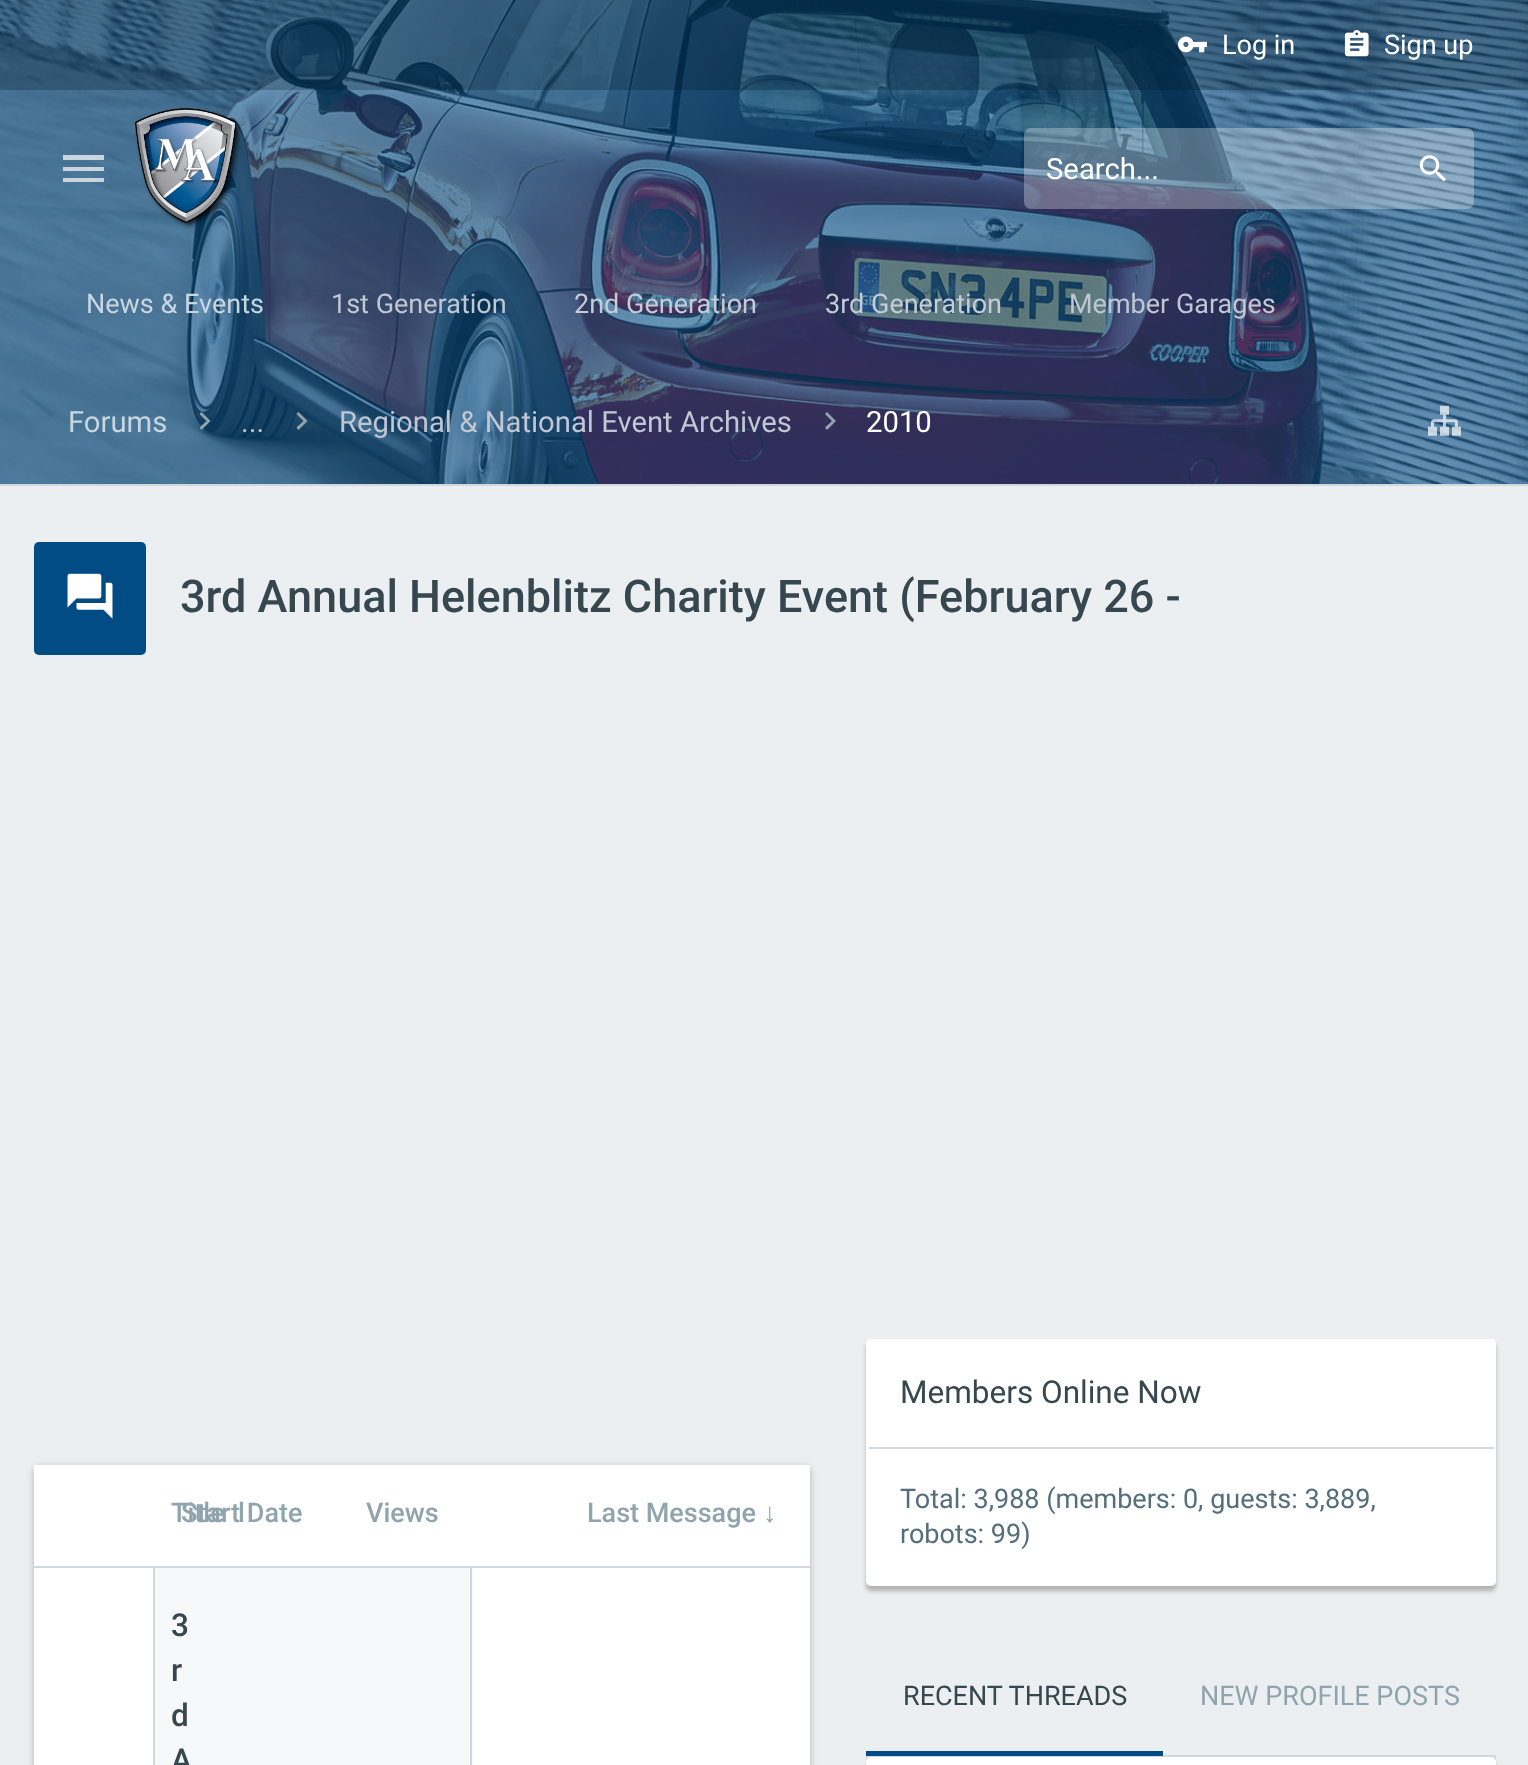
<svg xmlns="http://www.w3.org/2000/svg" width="1528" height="1765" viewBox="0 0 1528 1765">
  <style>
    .t1 { font: 27px Roboto; fill: #fff; }
    .t2 { font: 29.25px Roboto; fill: #fff; }
    .t3 { font: 27px Roboto; fill: #c8d6e0; }
    .t4 { font: 27px Roboto; fill: #c0c7d3; }
    .t5 { font: 27px Roboto; fill: #c6cbd6; }
    .t6 { font: 29.25px Roboto; fill: #c8d6e0; }
    .t7 { font: 29.25px Roboto; fill: #b7c4ce; }
    .t8 { font: 29.25px Roboto; fill: #c0c7d3; }
    .t9 { font: 500 45px Roboto; fill: #37474f; }
    .t10 { font: 500 27px Roboto; fill: #90a4ae; }
    .t11 { font: 27px Liberation Sans; fill: #90a4ae; }
    .t12 { font: 500 31.5px Roboto; fill: #37474f; }
    .t13 { font: 31.5px Roboto; fill: #37474f; }
    .t14 { font: 27px Roboto; fill: #546e7a; }
    .t15 { font: 27px Roboto; fill: #37474f; }
    .t16 { font: 27px Roboto; fill: #90a4ae; }
  </style>
  <rect width="100%" height="100%" fill="#eceff1"/>
  <image x="0" y="0" width="1528" height="484" href="images/1.png"/>
  <rect x="0" y="0" width="1528" height="90" fill="#003761b3"/>
  <image x="1178" y="36" width="29" height="17" href="images/2.png"/>
  <text x="1222" y="54" class="t1">Log in</text>
  <image x="1344" y="30" width="25" height="27" href="images/3.png"/>
  <text x="1384" y="54" class="t1">Sign up</text>
  <rect x="0" y="90" width="1528" height="158" fill="#014c8599"/>
  <rect x="1024" y="128" width="450" height="81" rx="7" fill="#ffffff4d"/>
  <text x="1046" y="179" class="t2">Search...</text>
  <image x="1419" y="155" width="27" height="27" href="images/4.png"/>
  <path d="M63 155H104V160H63ZM63 167H104V171H63ZM63 178H104V182H63Z" fill="#ffffffb3"/>
  <image x="135" y="105" width="108" height="124" href="images/5.png"/>
  <rect x="0" y="248" width="1528" height="112" fill="#014c8599"/>
  <text x="86" y="313" class="t3">News &amp; Events</text>
  <text x="331" y="313" class="t4">1st Generation</text>
  <text x="574" y="313" class="t5">2nd Generation</text>
  <text x="825" y="313" class="t5">3rd Generation</text>
  <text x="1069" y="313" class="t4">Member Garages</text>
  <rect x="0" y="360" width="1528" height="124" fill="#014c8599"/>
  <rect x="0" y="484" width="1528" height="2" fill="#cfd8dc"/>
  <text x="68" y="432" class="t6">Forums</text>
  <path d="M199.5 427.5L206.5 421L199.5 414L201.5 412L210.5 421L201.5 430Z" fill="#90a4ae"/>
  <path d="M296.5 427.5L303.5 421L296.5 414L298.5 412L307.5 421L298.5 430Z" fill="#90a4ae"/>
  <text x="241" y="432" class="t7">...</text>
  <text x="339" y="432" class="t8">Regional &amp; National Event Archives</text>
  <path d="M825 427.5L832 421L825 414L827 412L836 421L827 430Z" fill="#90a4ae"/>
  <text x="866" y="432" class="t2">2010</text>
  <image x="1428" y="405" width="33" height="31" href="images/6.png"/>
  <rect x="34" y="542" width="112" height="113" rx="5" fill="#014c85"/>
  <image x="67" y="573" width="46" height="46" href="images/7.png"/>
  <text x="180" y="612" class="t9">3rd Annual Helenblitz Charity Event (February 26 -</text>
  <rect x="34" y="1467" width="776" height="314" rx="5" fill="#00000040" filter="blur(3.5px)"/>
  <rect x="34" y="1568" width="776" height="197" fill="#fff"/>
  <rect x="34" y="1465" width="776" height="101" fill="#fff"/>
  <rect x="34" y="1566" width="776" height="2" fill="#cfd8dc"/>
  <text x="171" y="1522" class="t10">Title</text>
  <text x="181" y="1522" class="t10">Start Date</text>
  <text x="238" y="1522" class="t10">l</text>
  <text x="366" y="1522" class="t10">Views</text>
  <text x="587" y="1522" class="t10">Last Message</text>
  <text x="763" y="1522" class="t11">↓</text>
  <rect x="155" y="1568" width="318" height="197" fill="#f6f8f9"/>
  <rect x="470" y="1568" width="2" height="197" fill="#cfd8dc"/>
  <rect x="153" y="1568" width="2" height="197" fill="#cfd8dc"/>
  <text x="171" y="1636" class="t12">3</text>
  <text x="171" y="1681" class="t12">r</text>
  <text x="171" y="1726" class="t12">d</text>
  <text x="171" y="1771" class="t12">A</text>
  <rect x="866" y="1343" width="630" height="248" rx="5" fill="#00000040" filter="blur(2px)"/>
  <rect x="866" y="1339" width="630" height="247" rx="5" fill="#fff"/>
  <rect x="866" y="1339" width="630" height="110" rx="5" fill="#fff"/>
  <rect x="869" y="1447" width="625" height="2" fill="#cfd8dc"/>
  <text x="900" y="1403" class="t13">Members Online Now</text>
  <text x="900" y="1508" class="t14">Total: 3,988 (members: 0, guests: 3,889,</text>
  <text x="900" y="1543" class="t14">robots: 99)</text>
  <rect x="866" y="1755" width="630" height="5" fill="#cfd8dc"/>
  <rect x="866" y="1762" width="630" height="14" rx="5" fill="#00000040" filter="blur(2px)"/>
  <rect x="866" y="1751" width="297" height="5" fill="#014c85"/>
  <text x="903" y="1705" class="t15">RECENT THREADS</text>
  <text x="1200" y="1705" class="t16">NEW PROFILE POSTS</text>
  <rect x="866" y="1757" width="630" height="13" rx="5" fill="#fff"/>
</svg>
